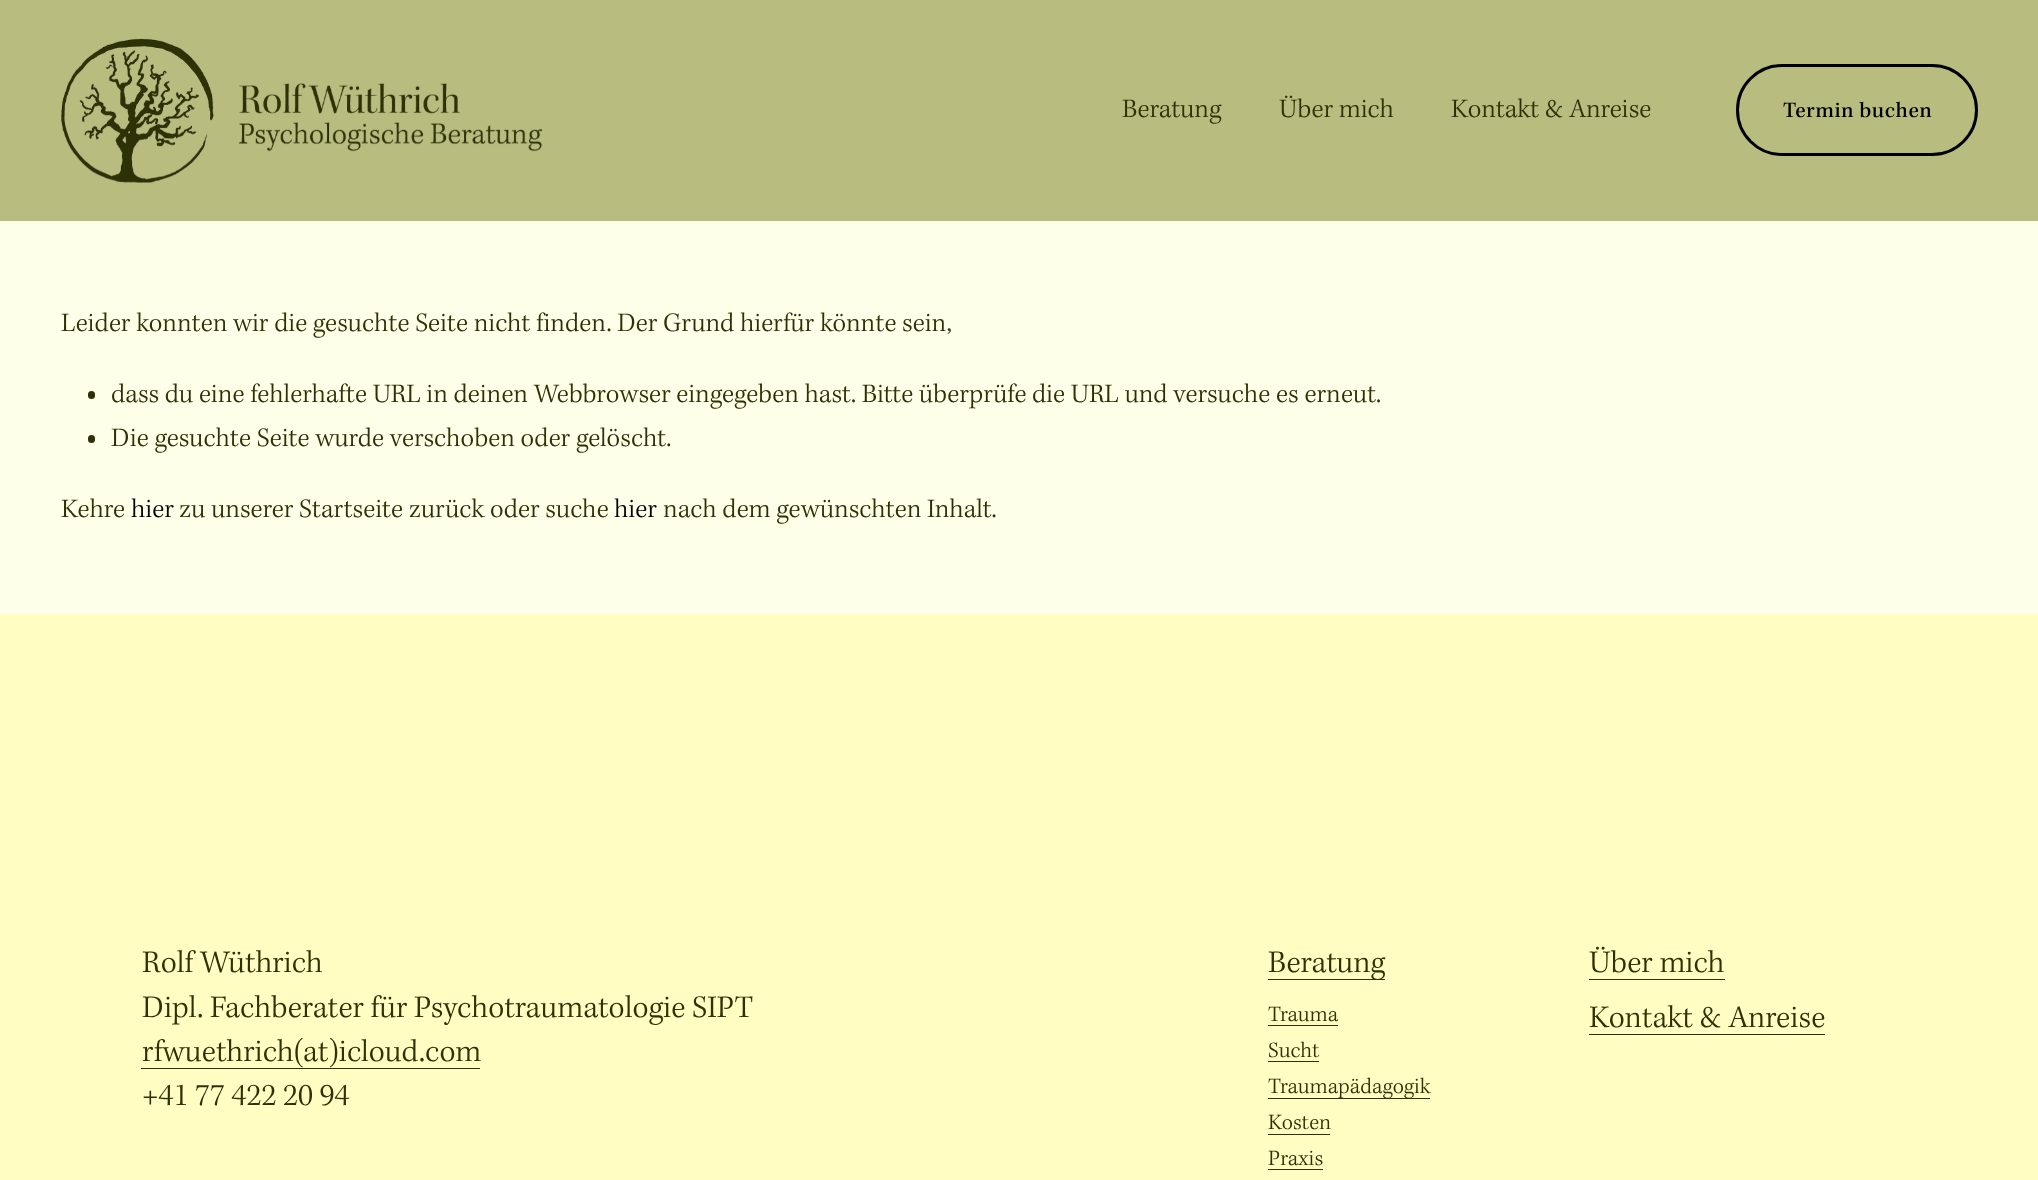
<svg xmlns="http://www.w3.org/2000/svg" width="2038" height="1180" viewBox="0 0 2038 1180">
  <style>
    .t1 { font: 300 27.35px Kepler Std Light; fill: #2e3105; }
    .t2 { font: 500 22.5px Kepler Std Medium; letter-spacing: 0.5px; fill: #000; }
    .t3 { font: 300 27.35px Kepler Std Light; fill: #000; }
    .t4 { font: 300 32.25px Kepler Std Light; fill: #2e3105; }
    .t5 { font: 300 22.5px Kepler Std Light; fill: #2e3105; }
  </style>
  <rect width="100%" height="100%" fill="#feffe9"/>
  <rect x="0" y="0" width="2038" height="221" fill="#b8bc7f"/>
  <image x="61" y="38" width="482" height="145" href="images/1.png"/>
  <text x="1122" y="117" class="t1">Beratung</text>
  <text x="1279" y="117" class="t1">Über mich</text>
  <text x="1451" y="117" class="t1">Kontakt &amp; Anreise</text>
  <rect x="1737.5" y="65.5" width="239" height="89" rx="44.5" fill="none" stroke="#000" stroke-width="3"/>
  <text x="1783" y="117" class="t2">Termin buchen</text>
  <text x="61" y="331" class="t1">Leider konnten wir die gesuchte Seite nicht finden. Der Grund hierfür könnte sein,</text>
  <rect x="88" y="391" width="7" height="8" rx="3.5" fill="#2e3105"/>
  <text x="111" y="402" class="t1">dass du eine fehlerhafte URL in deinen Webbrowser eingegeben hast. Bitte überprüfe die URL und versuche es erneut.</text>
  <rect x="88" y="435" width="7" height="8" rx="3.5" fill="#2e3105"/>
  <text x="111" y="446" class="t1">Die gesuchte Seite wurde verschoben oder gelöscht.</text>
  <text x="61" y="517" class="t1">Kehre</text>
  <text x="131" y="517" class="t3">hier</text>
  <text x="179" y="517" class="t1">zu unserer Startseite zurück oder suche</text>
  <text x="614" y="517" class="t3">hier</text>
  <text x="663" y="517" class="t1">nach dem gewünschten Inhalt.</text>
  <rect x="0" y="614" width="2038" height="566" fill="#fffdc1"/>
  <text x="142" y="972" class="t4">Rolf Wüthrich</text>
  <text x="142" y="1017" class="t4">Dipl. Fachberater für Psychotraumatologie SIPT</text>
  <text x="142" y="1061" class="t4">rfwuethrich(at)icloud.com</text>
  <rect x="141" y="1068" width="339" height="1" fill="#2e3105"/>
  <text x="142" y="1105" class="t4">+41 77 422 20 94</text>
  <rect x="1268" y="979" width="117" height="1" fill="#2e3105"/>
  <text x="1268" y="972" class="t4">Beratung</text>
  <text x="1589" y="972" class="t4">Über mich</text>
  <rect x="1589" y="979" width="136" height="1" fill="#2e3105"/>
  <text x="1268" y="1021" class="t5">Trauma</text>
  <rect x="1268" y="1025" width="70" height="1" fill="#2e3105"/>
  <text x="1268" y="1057" class="t5">Sucht</text>
  <rect x="1268" y="1061" width="51" height="1" fill="#2e3105"/>
  <rect x="1268" y="1098" width="162" height="1" fill="#2e3105"/>
  <text x="1268" y="1093" class="t5">Traumapädagogik</text>
  <text x="1268" y="1129" class="t5">Kosten</text>
  <rect x="1268" y="1134" width="62" height="1" fill="#2e3105"/>
  <text x="1268" y="1165" class="t5">Praxis</text>
  <rect x="1268" y="1169" width="55" height="1" fill="#2e3105"/>
  <text x="1589" y="1027" class="t4">Kontakt &amp; Anreise</text>
  <rect x="1589" y="1034" width="236" height="1" fill="#2e3105"/>
</svg>
